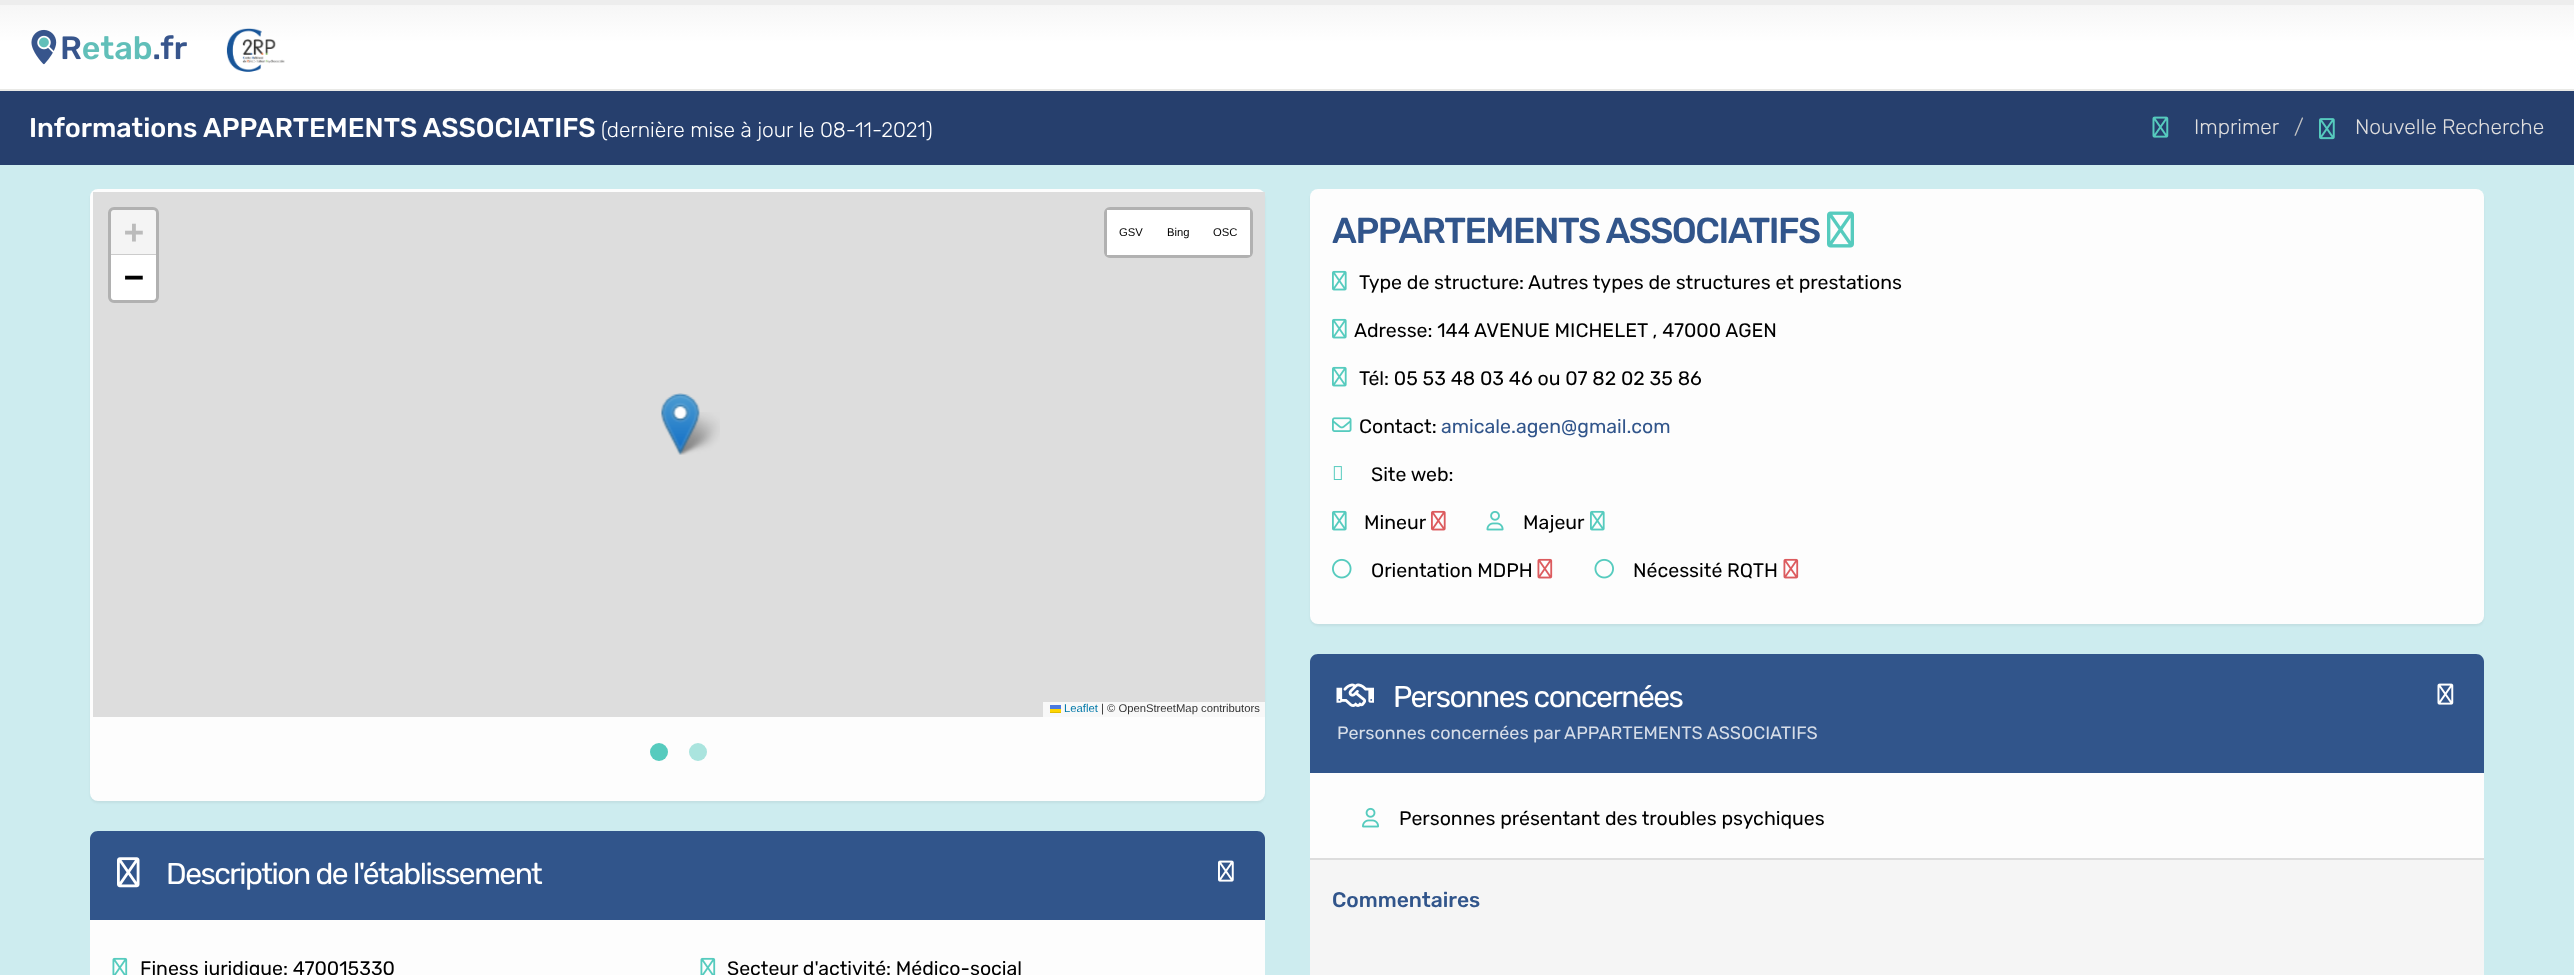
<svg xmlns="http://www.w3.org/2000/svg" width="2574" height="975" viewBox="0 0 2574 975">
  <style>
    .t1 { font: 500 27px Rubik; fill: #fff; }
    .t2 { font: 300 21px Rubik; fill: #fff; }
    .t3 { font: 300 21px Rubik; fill: #e0dfdf; }
    .t4 { font: 300 21px Rubik; fill: #c3c3c3; }
    .t5 { font: bold 33px DejaVu Sans Mono; fill: #bbb; }
    .t6 { font: bold 33px DejaVu Sans Mono; fill: #000; }
    .t7 { font: 11.25px Liberation Sans; fill: #000; }
    .t8 { font: 11.25px Liberation Sans; fill: #0078a8; }
    .t9 { font: 11.25px Liberation Sans; fill: #333; }
    .t10 { font: 30px Rubik; letter-spacing: -1.5px; fill: #fff; }
    .t11 { font: 19.5px Rubik; fill: #000; }
    .t12 { font: 500 36px Rubik; letter-spacing: -1.5px; fill: #31558b; }
    .t13 { font: 19.5px Rubik; fill: #31558b; }
    .t14 { font: 18px Rubik; fill: #d6dde8; }
    .t15 { font: 500 21px Rubik; fill: #31558b; }
  </style>
  <defs>
    <linearGradient id="g1" gradientUnits="userSpaceOnUse" x1="1287" y1="4.5" x2="1287" y2="89"><stop offset="0" stop-color="#f6f6f6"/><stop offset="0.45" stop-color="#fff"/></linearGradient>
  </defs>
  <rect width="100%" height="100%" fill="#cdecef"/>
  <rect x="0" y="5" width="2574" height="84" fill="url(#g1)"/>
  <rect x="0" y="0" width="2574" height="5" fill="#ededed"/>
  <rect x="0" y="89" width="2574" height="2" fill="#e9e9e6"/>
  <image x="31" y="29" width="156" height="36" href="images/1.png"/>
  <image x="226" y="28" width="59" height="44" href="images/2.png"/>
  <rect x="0" y="91" width="2574" height="74" fill="#263f6d"/>
  <text x="29" y="137" class="t1">Informations APPARTEMENTS ASSOCIATIFS</text>
  <text x="601" y="137" class="t2">(dernière mise à jour le 08-11-2021)</text>
  <image x="2152" y="116" width="17" height="22" href="images/3.png"/>
  <text x="2194" y="134" class="t3">Imprimer</text>
  <text x="2294" y="134" class="t4">/</text>
  <image x="2319" y="118" width="16" height="22" href="images/4.png"/>
  <text x="2355" y="134" class="t3">Nouvelle Recherche</text>
  <rect x="90" y="191" width="1175" height="612" rx="8" fill="#0000000d" filter="blur(1px)"/>
  <rect x="90" y="189" width="1175" height="612" rx="8" fill="#fdfdfd"/>
  <rect x="93" y="192" width="1172" height="525" fill="#ddd"/>
  <rect x="109.5" y="208.5" width="48" height="93" rx="4.5" fill="none" stroke="#b1b1b1" stroke-width="3"/>
  <path d="M114 210H153C154.5 210 156 211.5 156 213V255H111V213C111 211.5 112.5 210 114 210Z" fill="#f4f4f4"/>
  <rect x="111" y="254" width="45" height="1" fill="#ccc"/>
  <text x="124" y="243" class="t5">+</text>
  <path d="M111 255H156V297C156 298.5 154.5 300 153 300H114C112.5 300 111 298.5 111 297Z" fill="#fff"/>
  <text x="124" y="288" class="t6">−</text>
  <rect x="1105.5" y="208.5" width="146" height="48" rx="4.5" fill="none" stroke="#b1b1b1" stroke-width="3"/>
  <rect x="1107" y="210" width="143" height="45" fill="#fff"/>
  <text x="1119" y="236" class="t7">GSV</text>
  <text x="1167" y="236" class="t7">Bing</text>
  <text x="1213" y="236" class="t7">OSC</text>
  <rect x="1043" y="702" width="222" height="15" fill="#f8f8f8"/>
  <text x="1064" y="712" class="t8">Leaflet</text>
  <rect x="1050" y="705" width="11" height="4" fill="#4c7be1"/>
  <rect x="1050" y="709" width="11" height="3" fill="#ffd500"/>
  <rect x="1050" y="712" width="11" height="1" fill="#e0bc00"/>
  <text x="1101" y="712" class="t9">| © OpenStreetMap contributors</text>
  <image x="675" y="412" width="45" height="43" href="images/6.png"/>
  <image x="661" y="393" width="39" height="62" href="images/5.png"/>
  <circle cx="659" cy="752" r="9" fill="#56cbbe"/>
  <circle cx="698" cy="752" r="9" fill="#aae4de"/>
  <path d="M98 831H1257C1261.5 831 1265 834.5 1265 839V920H90V839C90 834.5 93.5 831 98 831Z" fill="#31558b"/>
  <image x="117" y="857" width="23" height="31" href="images/7.png"/>
  <text x="166" y="884" class="t10">Description de l'établissement</text>
  <image x="1218" y="860" width="16" height="22" href="images/8.png"/>
  <rect x="90" y="920" width="1175" height="55" fill="#fdfdfd"/>
  <image x="112" y="957" width="16" height="18" href="images/9.png"/>
  <text x="140" y="975" class="t11">Finess juridique: 470015330</text>
  <image x="700" y="957" width="16" height="18" href="images/9.png"/>
  <text x="727" y="975" class="t11">Secteur d'activité: Médico-social</text>
  <rect x="1310" y="191" width="1174" height="435" rx="8" fill="#0000000d" filter="blur(1px)"/>
  <rect x="1310" y="189" width="1174" height="435" rx="8" fill="#fdfdfd"/>
  <text x="1332" y="243" class="t12">APPARTEMENTS ASSOCIATIFS</text>
  <image x="1827" y="211" width="27" height="37" href="images/10.png"/>
  <image x="1332" y="270" width="15" height="21" href="images/11.png"/>
  <text x="1359" y="289" class="t11">Type de structure:</text>
  <text x="1528" y="289" class="t11">Autres types de structures et prestations</text>
  <image x="1332" y="318" width="15" height="21" href="images/11.png"/>
  <text x="1354" y="337" class="t11">Adresse: 144 AVENUE MICHELET , 47000 AGEN</text>
  <image x="1332" y="366" width="15" height="21" href="images/11.png"/>
  <text x="1359" y="385" class="t11">Tél: 05 53 48 03 46 ou 07 82 02 35 86</text>
  <image x="1332" y="417" width="20" height="15" href="images/12.png"/>
  <text x="1359" y="433" class="t11">Contact:</text>
  <text x="1441" y="433" class="t13">amicale.agen@gmail.com</text>
  <image x="1333" y="466" width="9" height="14" href="images/13.png"/>
  <text x="1371" y="481" class="t11">Site web:</text>
  <image x="1332" y="510" width="15" height="21" href="images/11.png"/>
  <text x="1364" y="529" class="t11">Mineur</text>
  <image x="1431" y="510" width="15" height="21" href="images/14.png"/>
  <image x="1486" y="511" width="18" height="20" href="images/15.png"/>
  <text x="1523" y="529" class="t11">Majeur</text>
  <image x="1590" y="510" width="15" height="21" href="images/11.png"/>
  <image x="1332" y="558" width="20" height="21" href="images/16.png"/>
  <text x="1371" y="577" class="t11">Orientation MDPH</text>
  <image x="1537" y="558" width="16" height="21" href="images/17.png"/>
  <image x="1594" y="558" width="20" height="21" href="images/18.png"/>
  <text x="1633" y="577" class="t11">Nécessité RQTH</text>
  <image x="1783" y="558" width="16" height="21" href="images/17.png"/>
  <path d="M1318 654H2476C2480.5 654 2484 657.5 2484 662V773H1310V662C1310 657.5 1313.5 654 1318 654Z" fill="#31558b"/>
  <image x="1336" y="683" width="38" height="24" href="images/19.png"/>
  <text x="1393" y="707" class="t10">Personnes concernées</text>
  <image x="2437" y="683" width="17" height="22" href="images/20.png"/>
  <text x="1337" y="739" class="t14">Personnes concernées par APPARTEMENTS ASSOCIATIFS</text>
  <rect x="1310" y="773" width="1174" height="85" fill="#fdfdfd"/>
  <image x="1362" y="807" width="17" height="21" href="images/21.png"/>
  <text x="1399" y="825" class="t11">Personnes présentant des troubles psychiques</text>
  <rect x="1310" y="860" width="1174" height="115" fill="#f5f5f5"/>
  <rect x="1310" y="858" width="1174" height="2" fill="#ddd"/>
  <text x="1332" y="907" class="t15">Commentaires</text>
</svg>
